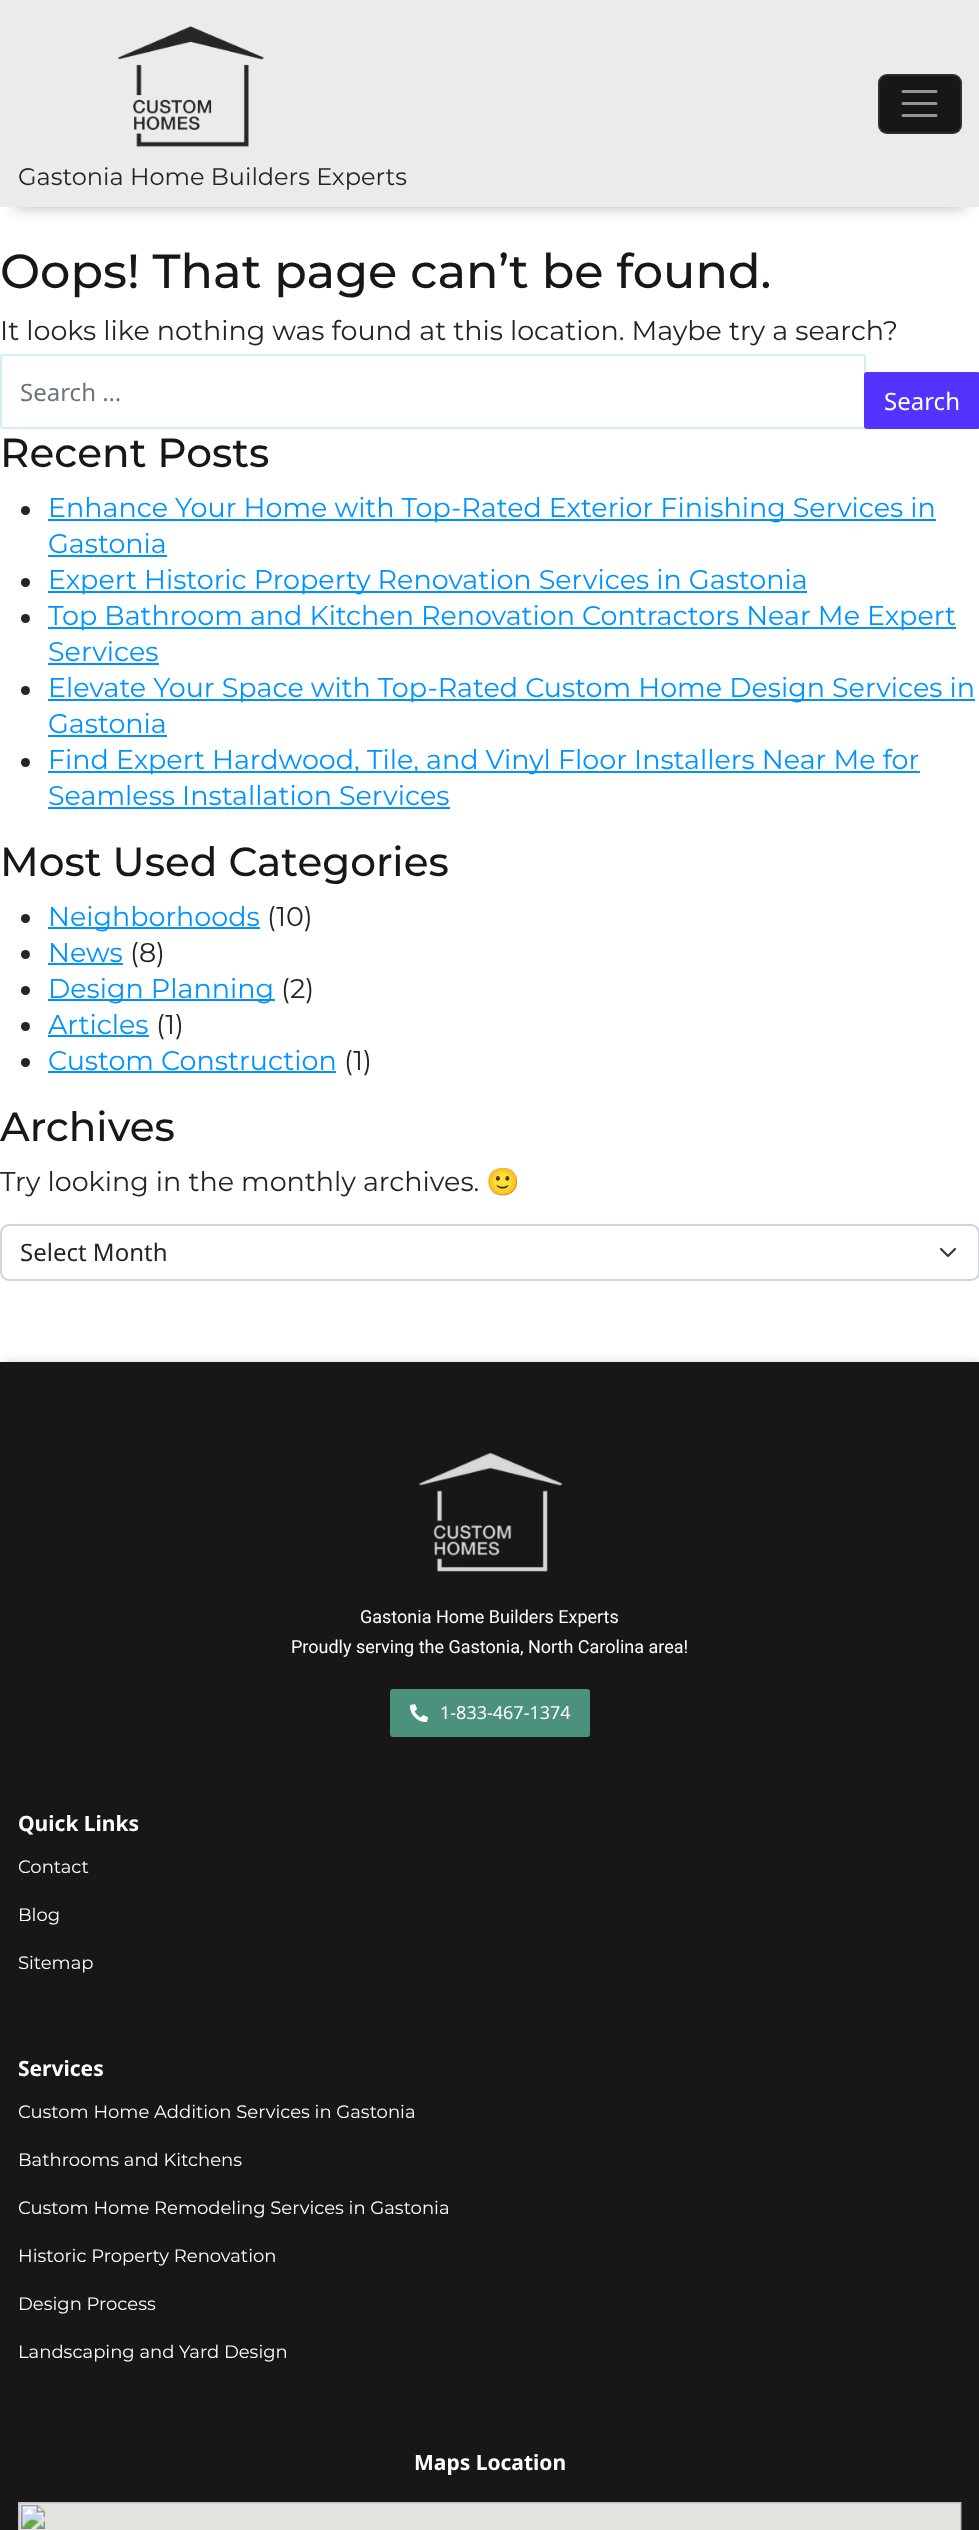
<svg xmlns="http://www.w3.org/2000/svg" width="979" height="2530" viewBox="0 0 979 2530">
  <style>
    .t1 { font: 24px Montserrat; fill: #212529; }
    .t2 { font: 500 47.75px Montserrat; fill: #181617; }
    .t3 { font: 27px Montserrat; fill: #212529; }
    .t4 { font: 24px Noto Sans; fill: #6c757d; }
    .t5 { font: 24px Noto Sans; fill: #fff; }
    .t6 { font: 500 40.6px Montserrat; fill: #181617; }
    .t7 { font: 27px Montserrat; fill: #0093ff; }
    .t8 { font: 27px Noto Color Emoji; fill: #212529; }
    .t9 { font: 24px Noto Sans; fill: #212529; }
    .t10 { font: 18px Roboto; fill: #fff; }
    .t11 { font: 18px Noto Sans; fill: #fff; }
    .t12 { font: bold 21px Noto Sans; fill: #fff; }
    .t13 { font: 18px Montserrat; fill: #fff; }
  </style>
  <rect width="100%" height="100%" fill="#fff"/>
  <rect x="15" y="30" width="950" height="177" fill="#11111154" filter="blur(7.5px)"/>
  <rect x="0" y="0" width="979" height="207" fill="#ebebeb"/>
  <rect x="878" y="74" width="84" height="60" rx="9" fill="#181617"/>
  <rect x="879" y="75" width="82" height="58" rx="8" fill="none" stroke="#ffffff1a" stroke-width="2"/>
  <path d="M903 91.5H936M903 103.5H936M903 115.5H936" fill="none" stroke="#979697" stroke-width="3" stroke-linecap="round"/>
  <image x="118" y="26" width="146" height="121" href="images/1.png"/>
  <text x="18" y="185" class="t1">Gastonia Home Builders Experts</text>
  <text x="0" y="288" class="t2">Oops! That page can’t be found.</text>
  <text x="0" y="340" class="t3">It looks like nothing was found at this location. Maybe try a search?</text>
  <rect x="1" y="355" width="864" height="73" rx="2" fill="none" stroke="#d4eef9" stroke-width="2"/>
  <text x="20" y="401" class="t4">Search …</text>
  <rect x="865" y="373" width="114" height="55" rx="2" fill="#53f" stroke="#53f" stroke-width="2"/>
  <text x="884" y="410" class="t5">Search</text>
  <text x="0" y="467" class="t6">Recent Posts</text>
  <circle cx="25.5" cy="510.5" r="4.5" fill="#212529"/>
  <rect x="48" y="519" width="888" height="2" fill="#0093ff"/>
  <text x="48" y="517" class="t7">Enhance Your Home with Top-Rated Exterior Finishing Services in</text>
  <text x="48" y="553" class="t7">Gastonia</text>
  <rect x="48" y="555" width="119" height="2" fill="#0093ff"/>
  <circle cx="25.5" cy="582.5" r="4.5" fill="#212529"/>
  <rect x="48" y="591" width="759" height="2" fill="#0093ff"/>
  <text x="48" y="589" class="t7">Expert Historic Property Renovation Services in Gastonia</text>
  <circle cx="25.5" cy="618.5" r="4.5" fill="#212529"/>
  <rect x="48" y="627" width="908" height="2" fill="#0093ff"/>
  <text x="48" y="625" class="t7">Top Bathroom and Kitchen Renovation Contractors Near Me Expert</text>
  <text x="48" y="661" class="t7">Services</text>
  <rect x="48" y="663" width="111" height="2" fill="#0093ff"/>
  <circle cx="25.5" cy="690.5" r="4.5" fill="#212529"/>
  <rect x="48" y="699" width="927" height="2" fill="#0093ff"/>
  <text x="48" y="697" class="t7">Elevate Your Space with Top-Rated Custom Home Design Services in</text>
  <text x="48" y="733" class="t7">Gastonia</text>
  <rect x="48" y="735" width="119" height="2" fill="#0093ff"/>
  <circle cx="25.5" cy="762.5" r="4.5" fill="#212529"/>
  <rect x="48" y="771" width="872" height="2" fill="#0093ff"/>
  <text x="48" y="769" class="t7">Find Expert Hardwood, Tile, and Vinyl Floor Installers Near Me for</text>
  <text x="48" y="805" class="t7">Seamless Installation Services</text>
  <rect x="48" y="807" width="402" height="2" fill="#0093ff"/>
  <text x="0" y="876" class="t6">Most Used Categories</text>
  <circle cx="25.5" cy="918.5" r="4.5" fill="#212529"/>
  <rect x="48" y="927" width="212" height="2" fill="#0093ff"/>
  <text x="48" y="926" class="t7">Neighborhoods</text>
  <text x="267" y="926" class="t3">(10)</text>
  <circle cx="25.5" cy="954.5" r="4.5" fill="#212529"/>
  <text x="48" y="962" class="t7">News</text>
  <rect x="48" y="963" width="75" height="2" fill="#0093ff"/>
  <text x="130" y="962" class="t3">(8)</text>
  <circle cx="25.5" cy="990.5" r="4.5" fill="#212529"/>
  <rect x="48" y="999" width="227" height="2" fill="#0093ff"/>
  <text x="48" y="998" class="t7">Design Planning</text>
  <text x="281" y="998" class="t3">(2)</text>
  <circle cx="25.5" cy="1026.5" r="4.5" fill="#212529"/>
  <text x="48" y="1034" class="t7">Articles</text>
  <rect x="48" y="1035" width="101" height="2" fill="#0093ff"/>
  <text x="156" y="1034" class="t3">(1)</text>
  <circle cx="25.5" cy="1062.5" r="4.5" fill="#212529"/>
  <text x="48" y="1070" class="t7">Custom Construction</text>
  <rect x="48" y="1071" width="288" height="2" fill="#0093ff"/>
  <text x="344" y="1070" class="t3">(1)</text>
  <text x="0" y="1141" class="t6">Archives</text>
  <text x="0" y="1191" class="t3">Try looking in the monthly archives.</text>
  <text x="486" y="1191" class="t8">🙂</text>
  <path d="M941 1249L948 1256L955 1249" fill="none" stroke="#343a40" stroke-width="2.2" stroke-linecap="round" stroke-linejoin="round"/>
  <rect x="1" y="1225" width="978" height="55" rx="8" fill="none" stroke="#ced4da" stroke-width="2"/>
  <text x="20" y="1261" class="t9">Select Month</text>
  <rect x="3" y="1365" width="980" height="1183" fill="#11111154" filter="blur(6px)"/>
  <rect x="0" y="1362" width="979" height="1168" fill="#181617"/>
  <image x="419" y="1452" width="144" height="120" href="images/2.png"/>
  <text x="360" y="1623" class="t10">Gastonia Home Builders Experts</text>
  <text x="291" y="1653" class="t10">Proudly serving the Gastonia, North Carolina area!</text>
  <rect x="390" y="1689" width="200" height="48" rx="3" fill="#4b917d"/>
  <image x="410" y="1704" width="18" height="19" href="images/3.png"/>
  <text x="440" y="1719" class="t11">1-833-467-1374</text>
  <text x="18" y="1831" class="t12">Quick Links</text>
  <text x="18" y="1873" class="t13">Contact</text>
  <text x="18" y="1921" class="t13">Blog</text>
  <text x="18" y="1969" class="t13">Sitemap</text>
  <text x="18" y="2076" class="t12">Services</text>
  <text x="18" y="2118" class="t13">Custom Home Addition Services in Gastonia</text>
  <text x="18" y="2166" class="t13">Bathrooms and Kitchens</text>
  <text x="18" y="2214" class="t13">Custom Home Remodeling Services in Gastonia</text>
  <text x="18" y="2262" class="t13">Historic Property Renovation</text>
  <text x="18" y="2310" class="t13">Design Process</text>
  <text x="18" y="2358" class="t13">Landscaping and Yard Design</text>
  <text x="414" y="2470" class="t12">Maps Location</text>
  <image x="18" y="2502" width="944" height="28" href="images/4.png"/>
</svg>
